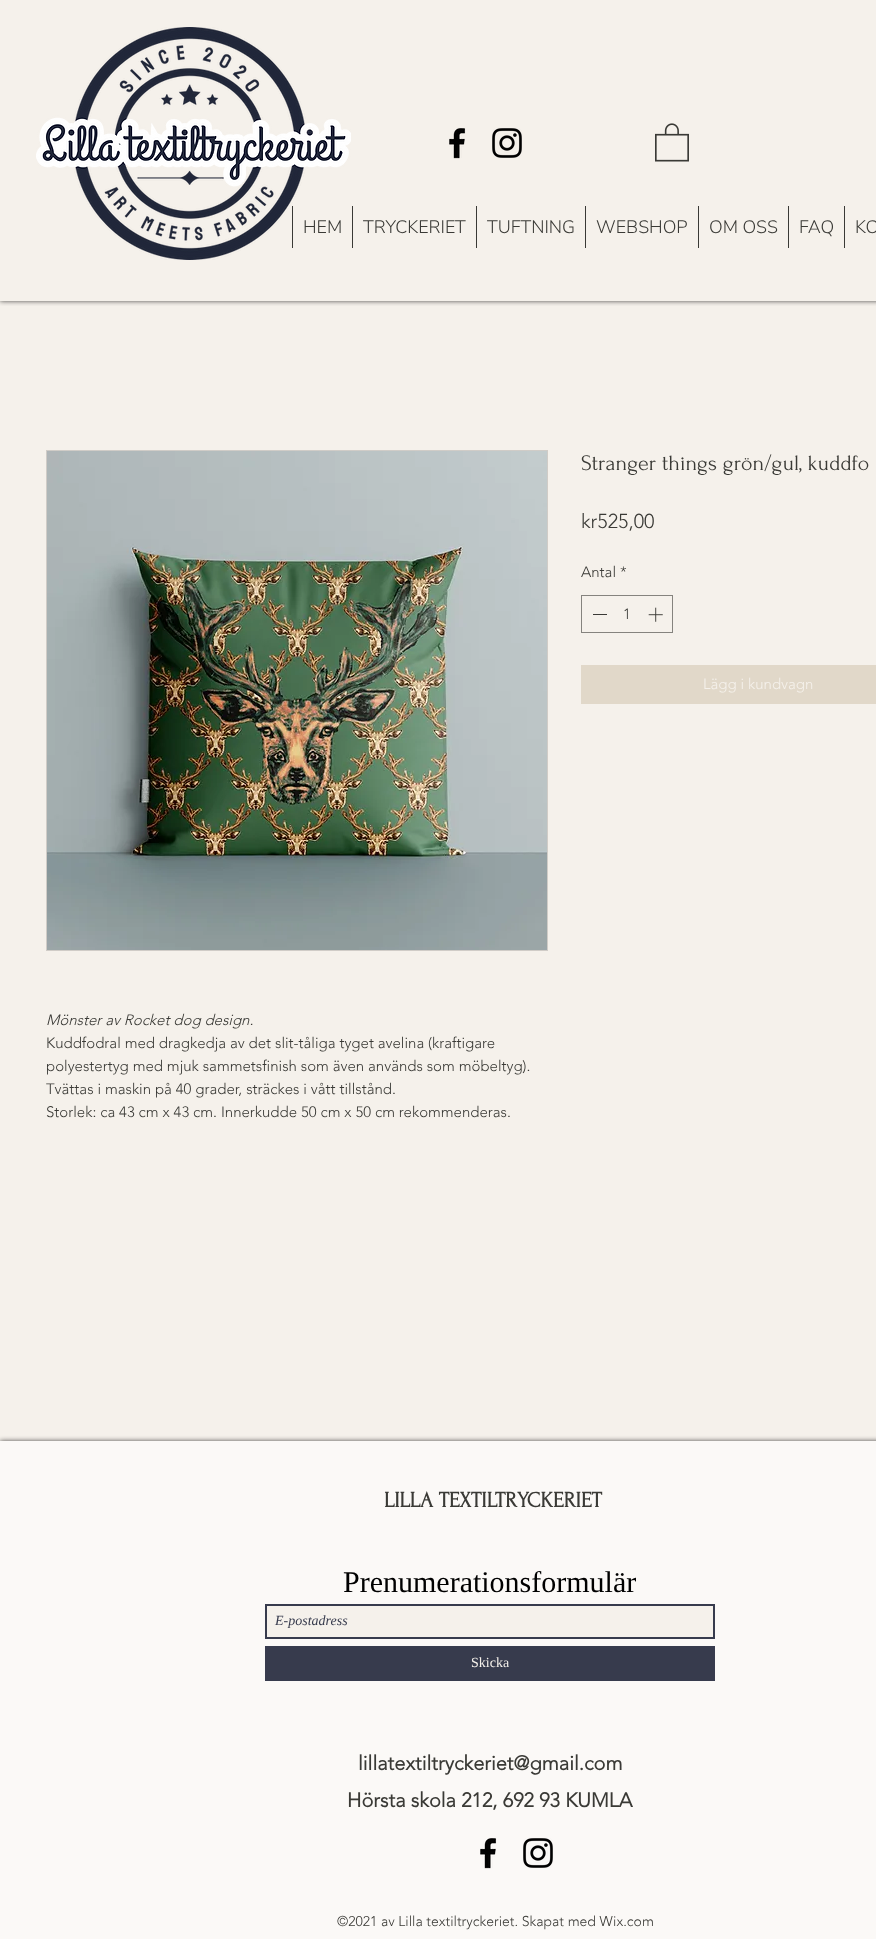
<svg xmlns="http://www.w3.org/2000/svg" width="876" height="1939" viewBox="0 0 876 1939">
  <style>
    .t1 { font: 300 18px Nunito Sans; fill: #3a3a36; }
    .t2 { font: 22px Forum; fill: #3a3a36; }
    .t3 { font: 300 20px 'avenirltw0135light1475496'; fill: #3a3a36; }
    .t4 { font: 300 15px 'avenirltw0135light1475496'; fill: #3a3a36; }
    .t5 { font: 300 15px 'avenirltw0135light1475496'; fill: #f5f1eb; }
    .t6 { font: italic 300 15px 'avenirltw0135light1475496'; fill: #3a3a36; }
    .t7 { font: bold 22px Forum; fill: #3a3a36; }
    .t8 { font: 30px Liberation Serif; fill: #000; }
    .t9 { font: italic 14px Liberation Serif; fill: #373b4d; }
    .t10 { font: 14px Liberation Serif; fill: #f5f1eb; }
    .t11 { font: bold 20px 'avenirltw0135light1475496'; fill: #3a3a36; }
    .t12 { font: 300 14px 'avenirltw0135light1475496'; fill: #3a3a36; }
  </style>
  <defs>
    <clipPath id="clip1"><rect x="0" y="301" width="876" height="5"/></clipPath>
  </defs>
  <rect width="100%" height="100%" fill="#f5f1eb"/>
  <g clip-path="url(#clip1)">
    <rect x="0" y="-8" width="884" height="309" fill="#000000b3" filter="blur(2.5px)"/>
  </g>
  <rect x="292" y="206" width="1" height="42" fill="#3a3a36"/>
  <text x="303" y="233" class="t1">HEM</text>
  <image x="36" y="27" width="315" height="233" href="images/1.png"/>
  <image x="449" y="128" width="17" height="31" href="images/2.png"/>
  <image x="492" y="128" width="30" height="30" href="images/3.png"/>
  <image x="655" y="123" width="34" height="39" href="images/4.png"/>
  <rect x="352" y="206" width="1" height="42" fill="#3a3a36"/>
  <text x="363" y="233" class="t1">TRYCKERIET</text>
  <rect x="476" y="206" width="1" height="42" fill="#3a3a36"/>
  <text x="487" y="233" class="t1">TUFTNING</text>
  <rect x="585" y="206" width="1" height="42" fill="#3a3a36"/>
  <text x="596" y="233" class="t1">WEBSHOP</text>
  <rect x="698" y="206" width="1" height="42" fill="#3a3a36"/>
  <text x="709" y="233" class="t1">OM OSS</text>
  <rect x="788" y="206" width="1" height="42" fill="#3a3a36"/>
  <text x="799" y="233" class="t1">FAQ</text>
  <rect x="844" y="206" width="1" height="42" fill="#3a3a36"/>
  <text x="855" y="233" class="t1">KO</text>
  <text x="581" y="470" class="t2">Stranger things grön/gul, kuddfo</text>
  <text x="581" y="528" class="t3">kr525,00</text>
  <text x="581" y="577" class="t4">Antal *</text>
  <rect x="581.5" y="595.5" width="91" height="37" fill="none" stroke="#85837e"/>
  <rect x="593" y="614" width="14" height="1" fill="#3a3a36"/>
  <text x="623" y="619" class="t4">1</text>
  <image x="648" y="607" width="15" height="15" href="images/5.png"/>
  <rect x="581" y="665" width="295" height="39" fill="#e1d8c9"/>
  <text x="703" y="689" class="t5">Lägg i kundvagn</text>
  <rect x="46.5" y="450.5" width="501" height="500" fill="none" stroke="#d0ccc7"/>
  <image x="47" y="451" width="500" height="499" href="images/6.png"/>
  <text x="46" y="1025" class="t6">Mönster av Rocket dog design.</text>
  <text x="46" y="1048" class="t4">Kuddfodral med dragkedja av det slit-tåliga tyget avelina (kraftigare</text>
  <text x="46" y="1071" class="t4">polyestertyg med mjuk sammetsfinish som även används som möbeltyg).</text>
  <text x="46" y="1094" class="t4">Tvättas i maskin på 40 grader, sträckes i vått tillstånd.</text>
  <text x="46" y="1117" class="t4">Storlek: ca 43 cm x 43 cm. Innerkudde 50 cm x 50 cm rekommenderas.</text>
  <rect x="0" y="1441" width="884" height="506" fill="#000000b3" filter="blur(2.5px)"/>
  <rect x="0" y="1441" width="876" height="498" fill="#fbf9f7"/>
  <text x="384" y="1507" class="t7">LILLA TEXTILTRYCKERIET</text>
  <text x="343" y="1592" class="t8">Prenumerationsformulär</text>
  <rect x="266" y="1605" width="448" height="33" fill="#f5f1eb" stroke="#373b4d" stroke-width="2"/>
  <text x="275" y="1625" class="t9">E-postadress</text>
  <rect x="265" y="1646" width="450" height="35" fill="#373b4d"/>
  <text x="471" y="1667" class="t10">Skicka</text>
  <text x="358" y="1770" class="t11">lillatextiltryckeriet@gmail.com</text>
  <text x="347" y="1807" class="t11">Hörsta skola 212, 692 93 KUMLA</text>
  <image x="480" y="1838" width="17" height="31" href="images/7.png"/>
  <image x="523" y="1838" width="30" height="30" href="images/8.png"/>
  <text x="337" y="1926" class="t12">©2021 av Lilla textiltryckeriet. Skapat med Wix.com</text>
</svg>
